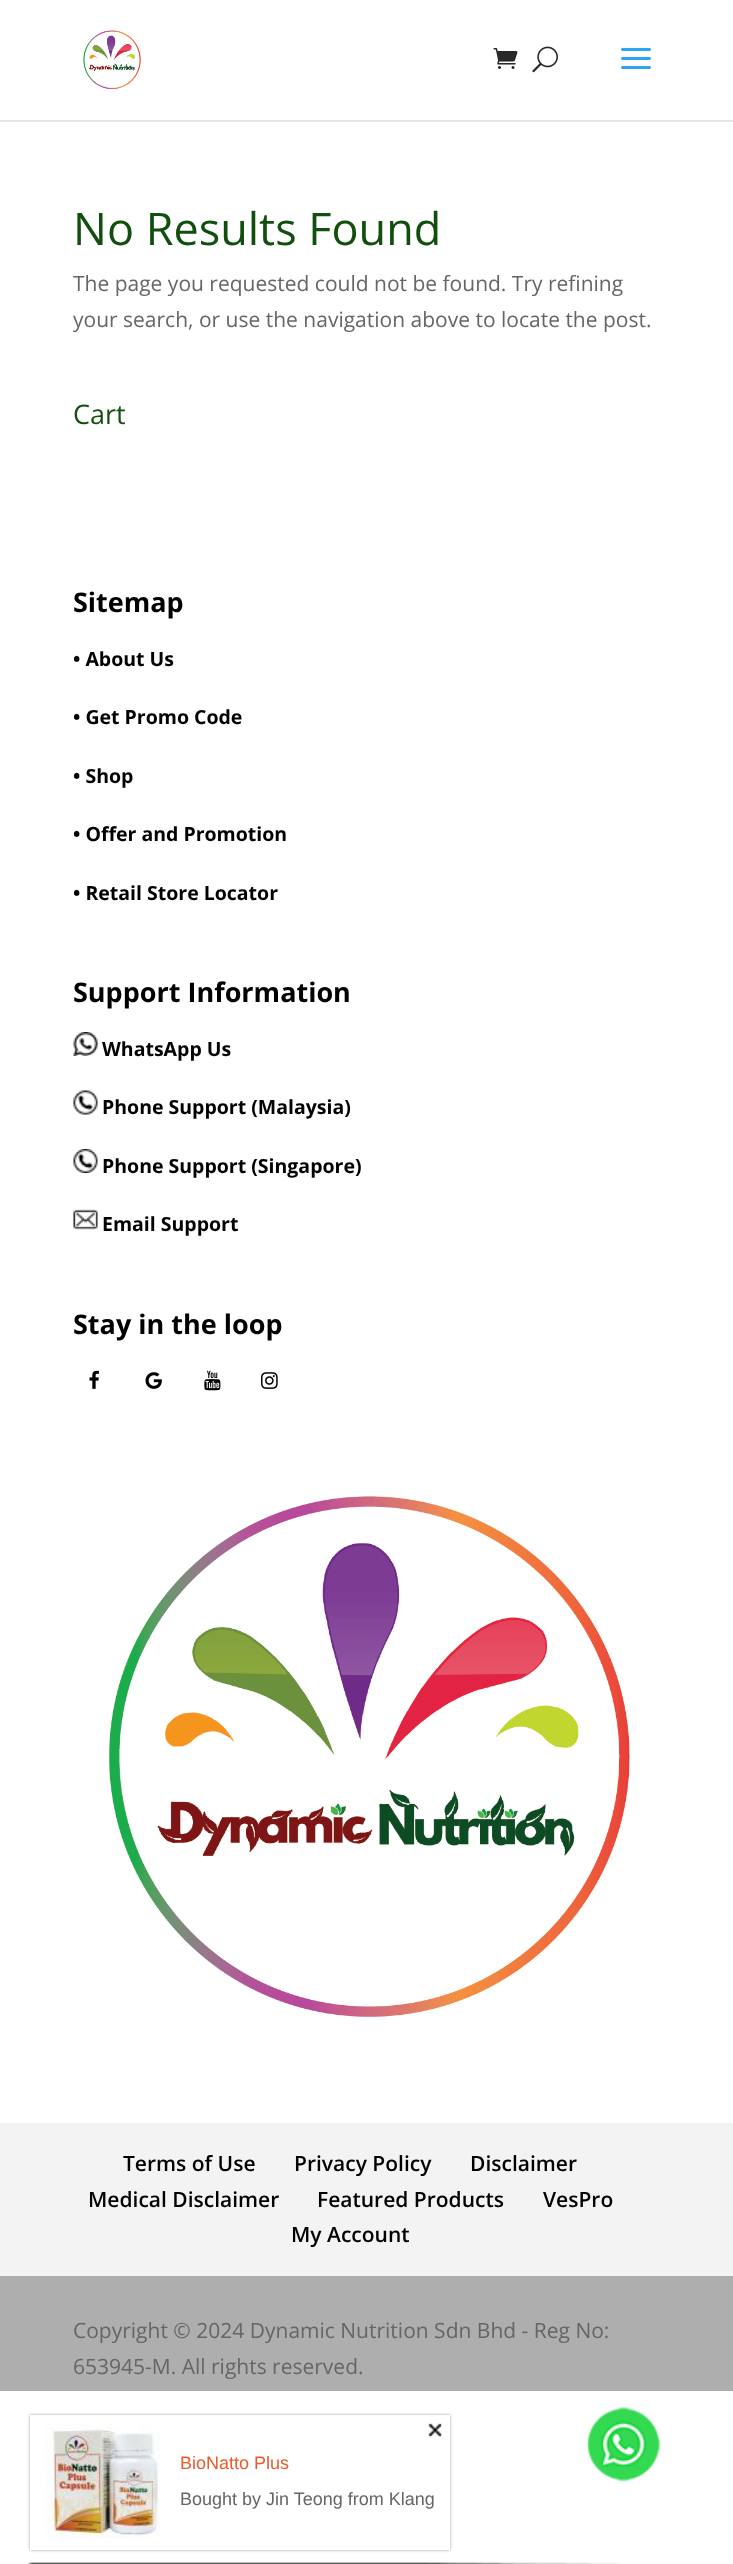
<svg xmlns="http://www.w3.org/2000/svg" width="733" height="2564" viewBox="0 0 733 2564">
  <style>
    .t1 { font: 45px Open Sans; fill: #104f0d; }
    .t2 { font: 21px Open Sans; fill: #666; }
    .t3 { font: 27px Open Sans; fill: #104f0d; }
    .t4 { font: bold 27px Open Sans; fill: #000; }
    .t5 { font: bold 19.5px Open Sans; fill: #000; }
    .t6 { font: 600 21px Open Sans; fill: #000; }
    .t7 { font: 18px Liberation Sans; fill: #ed592d; }
    .t8 { font: 18px Liberation Sans; fill: #666; }
  </style>
  <defs>
    <clipPath id="clip1"><path d="M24 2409H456V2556H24ZM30 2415H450V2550H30Z" clip-rule="evenodd"/></clipPath>
  </defs>
  <rect width="100%" height="100%" fill="#fff"/>
  <path d="M0 120V122H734V2V120Z" fill="#e6e6e6"/>
  <image x="83" y="30" width="58" height="60" href="images/1.png"/>
  <image x="493" y="48" width="25" height="21" href="images/2.png"/>
  <image x="532" y="46" width="26" height="27" href="images/3.png"/>
  <image x="621" y="48" width="30" height="21" href="images/4.png"/>
  <text x="73" y="245" class="t1">No Results Found</text>
  <text x="73" y="291" class="t2">The page you requested could not be found. Try refining</text>
  <text x="73" y="327" class="t2">your search, or use the navigation above to locate the post.</text>
  <text x="73" y="424" class="t3">Cart</text>
  <text x="73" y="612" class="t4">Sitemap</text>
  <text x="73" y="666" class="t5">• About Us</text>
  <text x="73" y="724" class="t5">• Get Promo Code</text>
  <text x="73" y="783" class="t5">• Shop</text>
  <text x="73" y="841" class="t5">• Offer and Promotion</text>
  <text x="73" y="900" class="t5">• Retail Store Locator</text>
  <text x="73" y="1002" class="t4">Support Information</text>
  <image x="73" y="1032" width="25" height="24" href="images/5.png"/>
  <text x="102" y="1056" class="t5">WhatsApp Us</text>
  <image x="73" y="1090" width="25" height="25" href="images/6.png"/>
  <text x="102" y="1114" class="t5">Phone Support (Malaysia)</text>
  <image x="73" y="1149" width="25" height="24" href="images/7.png"/>
  <text x="102" y="1173" class="t5">Phone Support (Singapore)</text>
  <image x="73" y="1209" width="25" height="21" href="images/8.png"/>
  <text x="102" y="1231" class="t5">Email Support</text>
  <text x="73" y="1334" class="t4">Stay in the loop</text>
  <image x="89" y="1370" width="10" height="19" href="images/9.png"/>
  <image x="145" y="1372" width="17" height="17" href="images/10.png"/>
  <image x="204" y="1370" width="17" height="21" href="images/11.png"/>
  <image x="261" y="1372" width="17" height="17" href="images/12.png"/>
  <image x="109" y="1496" width="521" height="521" href="images/13.png"/>
  <rect x="0" y="2123" width="733" height="153" fill="#f3f3f3"/>
  <text x="123" y="2171" class="t6">Terms of Use</text>
  <text x="294" y="2171" class="t6">Privacy Policy</text>
  <text x="470" y="2171" class="t6">Disclaimer</text>
  <text x="88" y="2207" class="t6">Medical Disclaimer</text>
  <text x="317" y="2207" class="t6">Featured Products</text>
  <text x="543" y="2207" class="t6">VesPro</text>
  <text x="291" y="2242" class="t6">My Account</text>
  <rect x="0" y="2276" width="733" height="115" fill="#aeaeae"/>
  <text x="73" y="2338" class="t2">Copyright © 2024 Dynamic Nutrition Sdn Bhd - Reg No:</text>
  <text x="73" y="2374" class="t2">653945-M. All rights reserved.</text>
  <g clip-path="url(#clip1)">
    <rect x="30" y="2415" width="420" height="135" fill="#00000066" filter="blur(1.5px)"/>
  </g>
  <image x="428" y="2423" width="14" height="14" href="images/14.png"/>
  <image x="45" y="2423" width="116" height="115" href="images/15.png"/>
  <text x="180" y="2469" class="t7">BioNatto Plus</text>
  <text x="180" y="2505" class="t8">Bought by Jin Teong from Klang</text>
  <image x="587" y="2407" width="74" height="75" href="images/16.png"/>
  <rect x="30" y="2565" width="398" height="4" fill="#00000066" filter="blur(1.5px)"/>
  <rect x="30" y="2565" width="417" height="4" fill="#00000066" filter="blur(1.5px)"/>
  <rect x="30" y="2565" width="417" height="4" fill="#00000066" filter="blur(1.5px)"/>
  <rect x="30" y="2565" width="452" height="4" fill="#00000066" filter="blur(1.5px)"/>
  <rect x="30" y="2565" width="425" height="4" fill="#00000066" filter="blur(1.5px)"/>
  <rect x="30" y="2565" width="410" height="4" fill="#00000066" filter="blur(1.5px)"/>
  <rect x="30" y="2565" width="471" height="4" fill="#00000066" filter="blur(1.5px)"/>
  <rect x="30" y="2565" width="447" height="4" fill="#00000066" filter="blur(1.5px)"/>
  <rect x="30" y="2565" width="410" height="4" fill="#00000066" filter="blur(1.5px)"/>
  <rect x="30" y="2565" width="536" height="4" fill="#00000066" filter="blur(1.5px)"/>
  <rect x="30" y="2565" width="471" height="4" fill="#00000066" filter="blur(1.5px)"/>
  <rect x="30" y="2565" width="560" height="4" fill="#00000066" filter="blur(1.5px)"/>
  <rect x="30" y="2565" width="588" height="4" fill="#00000066" filter="blur(1.5px)"/>
  <rect x="30" y="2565" width="506" height="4" fill="#00000066" filter="blur(1.5px)"/>
  <rect x="30" y="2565" width="485" height="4" fill="#00000066" filter="blur(1.5px)"/>
  <rect x="30" y="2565" width="470" height="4" fill="#00000066" filter="blur(1.5px)"/>
</svg>
